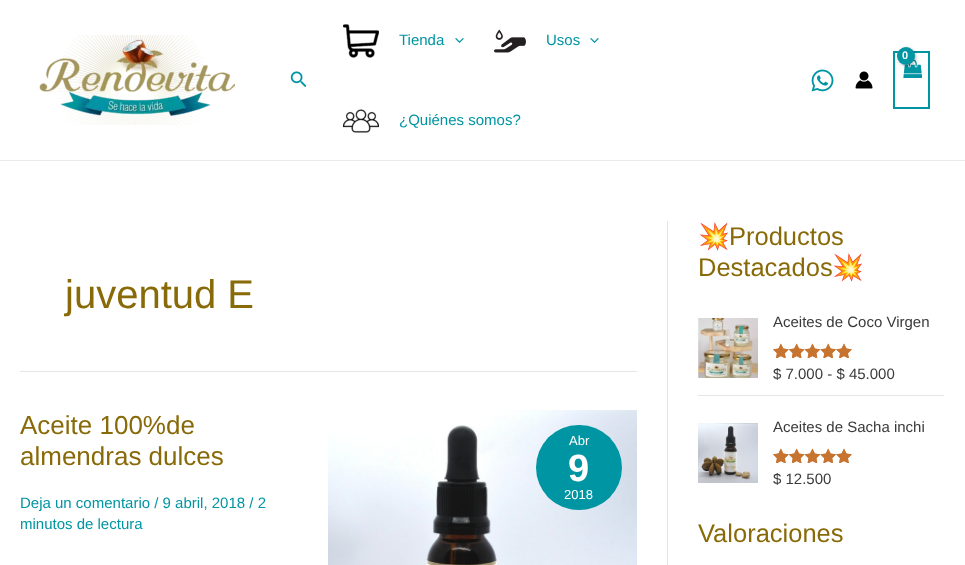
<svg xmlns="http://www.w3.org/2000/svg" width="965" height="565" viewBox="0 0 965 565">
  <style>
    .t1 { font: 15px Liberation Sans; fill: #0095a2; }
    .t2 { font: bold 11px Liberation Sans; fill: #fff; }
    .t3 { font: 40px Liberation Sans; fill: #886a08; }
    .t4 { font: 26px Liberation Sans; fill: #886a08; }
    .t5 { font: 13px Liberation Sans; fill: #fff; }
    .t6 { font: bold 38px Liberation Sans; fill: #fff; }
    .t7 { font: 25.5px Noto Color Emoji; fill: #886a08; }
    .t8 { font: 25.5px Liberation Sans; fill: #886a08; }
    .t9 { font: 15px Liberation Sans; fill: #3a3a3a; }
  </style>
  <defs>
    <clipPath id="clip1"><rect x="536" y="425" width="86" height="85" rx="42.5"/></clipPath>
  </defs>
  <rect width="100%" height="100%" fill="#fff"/>
  <rect x="0" y="160" width="965" height="1" fill="#eaeaea"/>
  <image x="39" y="35" width="196" height="90" href="images/1.png"/>
  <image x="290" y="71" width="16" height="17" href="images/2.png"/>
  <image x="343" y="24" width="36" height="34" href="images/3.png"/>
  <text x="399" y="45" class="t1">Tienda</text>
  <image x="455" y="38" width="9" height="5" href="images/4.png"/>
  <image x="494" y="29" width="32" height="24" href="images/5.png"/>
  <text x="546" y="45" class="t1">Usos</text>
  <image x="590" y="38" width="9" height="5" href="images/4.png"/>
  <image x="343" y="109" width="36" height="24" href="images/6.png"/>
  <text x="399" y="125" class="t1">¿Quiénes somos?</text>
  <rect x="894" y="52" width="35" height="56" fill="none" stroke="#0095a2" stroke-width="2"/>
  <image x="903" y="59" width="19" height="19" href="images/7.png"/>
  <rect x="898" y="48" width="18" height="18" rx="9" fill="#0000004d" filter="blur(1.5px)"/>
  <circle cx="906" cy="56" r="9" fill="#0095a2"/>
  <text x="902" y="59" class="t2">0</text>
  <image x="811" y="69" width="23" height="23" href="images/8.png"/>
  <image x="855" y="71" width="18" height="18" href="images/9.png"/>
  <rect x="667" y="221" width="1" height="344" fill="#e5e5e5"/>
  <rect x="20" y="371" width="617" height="1" fill="#e5e5e5"/>
  <text x="65" y="308" class="t3">juventud E</text>
  <text x="20" y="434" class="t4">Aceite 100%de</text>
  <text x="20" y="465" class="t4">almendras dulces</text>
  <text x="20" y="508" class="t1">Deja un comentario / 9 abril, 2018 / 2</text>
  <text x="20" y="529" class="t1">minutos de lectura</text>
  <image x="328" y="410" width="309" height="155" href="images/10.png"/>
  <rect x="536" y="425" width="86" height="85" rx="42.5" fill="#0095a2"/>
  <g clip-path="url(#clip1)">
    <rect x="546" y="435" width="65" height="13" fill="#0095a2"/>
  </g>
  <text x="569" y="445" class="t5">Abr</text>
  <text x="568" y="481" class="t6">9</text>
  <g clip-path="url(#clip1)">
    <rect x="546" y="489" width="65" height="13" fill="#0095a2"/>
  </g>
  <text x="564" y="499" class="t5">2018</text>
  <text x="698" y="245" class="t7">💥</text>
  <text x="729" y="245" class="t8">Productos</text>
  <text x="698" y="276" class="t8">Destacados</text>
  <text x="832" y="276" class="t7">💥</text>
  <rect x="698" y="395" width="246" height="1" fill="#e5e5e5"/>
  <image x="698" y="318" width="60" height="60" href="images/11.png"/>
  <text x="773" y="327" class="t9">Aceites de Coco Virgen</text>
  <image x="773" y="343" width="79" height="15" href="images/12.png"/>
  <image x="773" y="343" width="79" height="15" href="images/13.png"/>
  <text x="773" y="379" class="t9">$ 7.000 - $ 45.000</text>
  <image x="698" y="423" width="60" height="60" href="images/14.png"/>
  <text x="773" y="432" class="t9">Aceites de Sacha inchi</text>
  <image x="773" y="448" width="79" height="15" href="images/12.png"/>
  <image x="773" y="448" width="79" height="15" href="images/13.png"/>
  <text x="773" y="484" class="t9">$ 12.500</text>
  <text x="698" y="542" class="t8">Valoraciones</text>
</svg>
